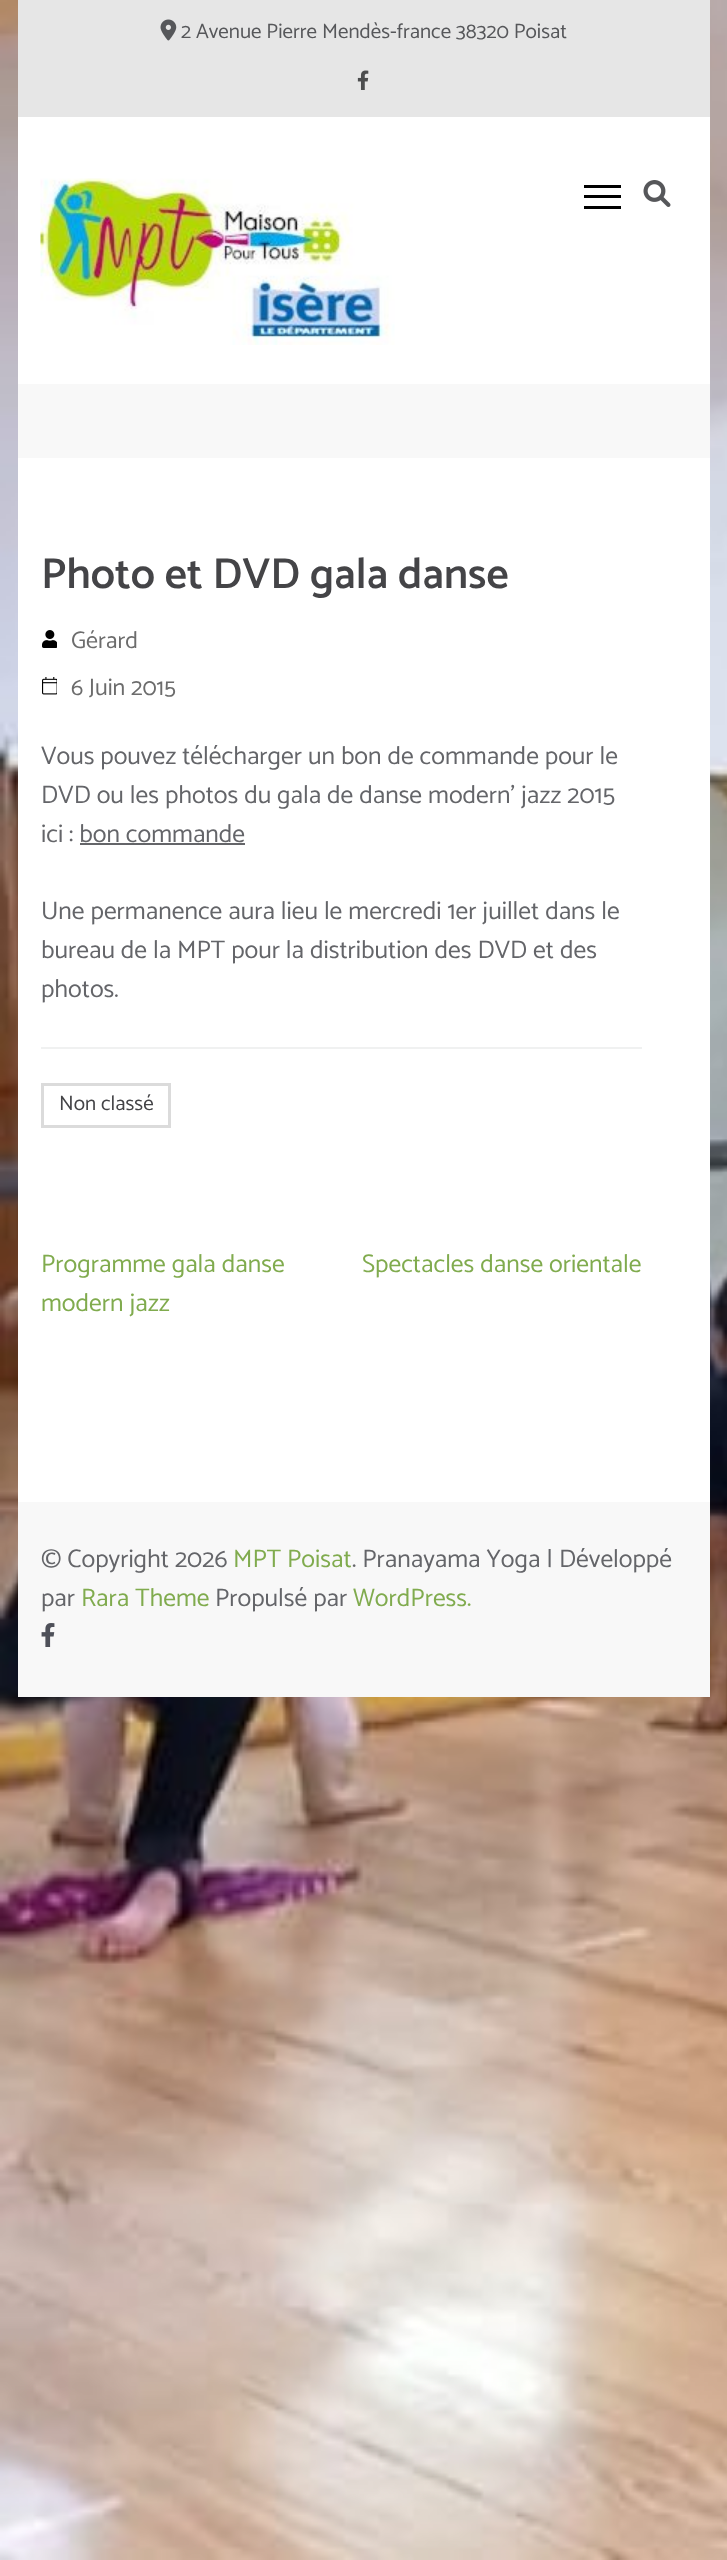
<svg xmlns="http://www.w3.org/2000/svg" width="727" height="2560" viewBox="0 0 727 2560">
  <style>
    .t1 { font: 21px Catamaran; fill: #56575a; }
    .t2 { font: 600 43.5px Catamaran; fill: #444447; }
    .t3 { font: 24px Catamaran; fill: #6c6c6c; }
    .t4 { font: 25.5px Catamaran; fill: #646569; }
    .t5 { font: 21px Catamaran; fill: #444447; }
    .t6 { font: 25.5px Catamaran; fill: #80ab4e; }
  </style>
  <rect width="100%" height="100%" fill="#fff"/>
  <image x="0" y="0" width="727" height="2560" href="images/1.png"/>
  <rect x="18" y="117" width="692" height="1385" fill="#fff"/>
  <rect x="18" y="0" width="692" height="117" fill="#e6e6e6"/>
  <image x="160" y="19" width="17" height="22" href="images/2.png"/>
  <text x="181" y="38" class="t1">2 Avenue Pierre Mendès-france 38320 Poisat</text>
  <image x="357" y="70" width="12" height="20" href="images/3.png"/>
  <image x="40" y="178" width="355" height="167" href="images/4.png"/>
  <rect x="584" y="185" width="37" height="3" fill="#000"/>
  <rect x="584" y="195" width="37" height="3" fill="#000"/>
  <rect x="584" y="206" width="37" height="3" fill="#000"/>
  <image x="643" y="180" width="28" height="27" href="images/5.png"/>
  <rect x="18" y="384" width="692" height="74" fill="#f8f8f8"/>
  <text x="41" y="588" class="t2">Photo et DVD gala danse</text>
  <image x="42" y="630" width="15" height="18" href="images/6.png"/>
  <text x="71" y="648" class="t3">Gérard</text>
  <image x="42" y="677" width="15" height="18" href="images/7.png"/>
  <text x="71" y="695" class="t3">6 Juin 2015</text>
  <text x="41" y="764" class="t4">Vous pouvez télécharger un bon de commande pour le</text>
  <text x="41" y="803" class="t4">DVD ou les photos du gala de danse modern’ jazz 2015</text>
  <text x="41" y="842" class="t4">ici : bon commande</text>
  <rect x="80" y="843" width="165" height="2" fill="#646569"/>
  <text x="41" y="919" class="t4">Une permanence aura lieu le mercredi 1er juillet dans le</text>
  <text x="41" y="958" class="t4">bureau de la MPT pour la distribution des DVD et des</text>
  <text x="41" y="997" class="t4">photos.</text>
  <rect x="41" y="1047" width="601" height="2" fill="#f0f1f1"/>
  <rect x="42.5" y="1084.5" width="127" height="42" fill="none" stroke="#dbdbdb" stroke-width="3"/>
  <text x="59" y="1110" class="t5">Non classé</text>
  <text x="41" y="1272" class="t6">Programme gala danse</text>
  <text x="41" y="1311" class="t6">modern jazz</text>
  <text x="362" y="1272" class="t6">Spectacles danse orientale</text>
  <rect x="18" y="1502" width="692" height="195" fill="#f8f8f8"/>
  <text x="41" y="1567" class="t4">© Copyright 2026</text>
  <text x="233" y="1567" class="t6">MPT Poisat</text>
  <text x="352" y="1567" class="t4">. Pranayama Yoga | Développé</text>
  <text x="41" y="1606" class="t4">par</text>
  <text x="81" y="1606" class="t6">Rara Theme</text>
  <text x="215" y="1606" class="t4">Propulsé par</text>
  <text x="353" y="1606" class="t6">WordPress.</text>
  <image x="41" y="1623" width="14" height="24" href="images/8.png"/>
</svg>
